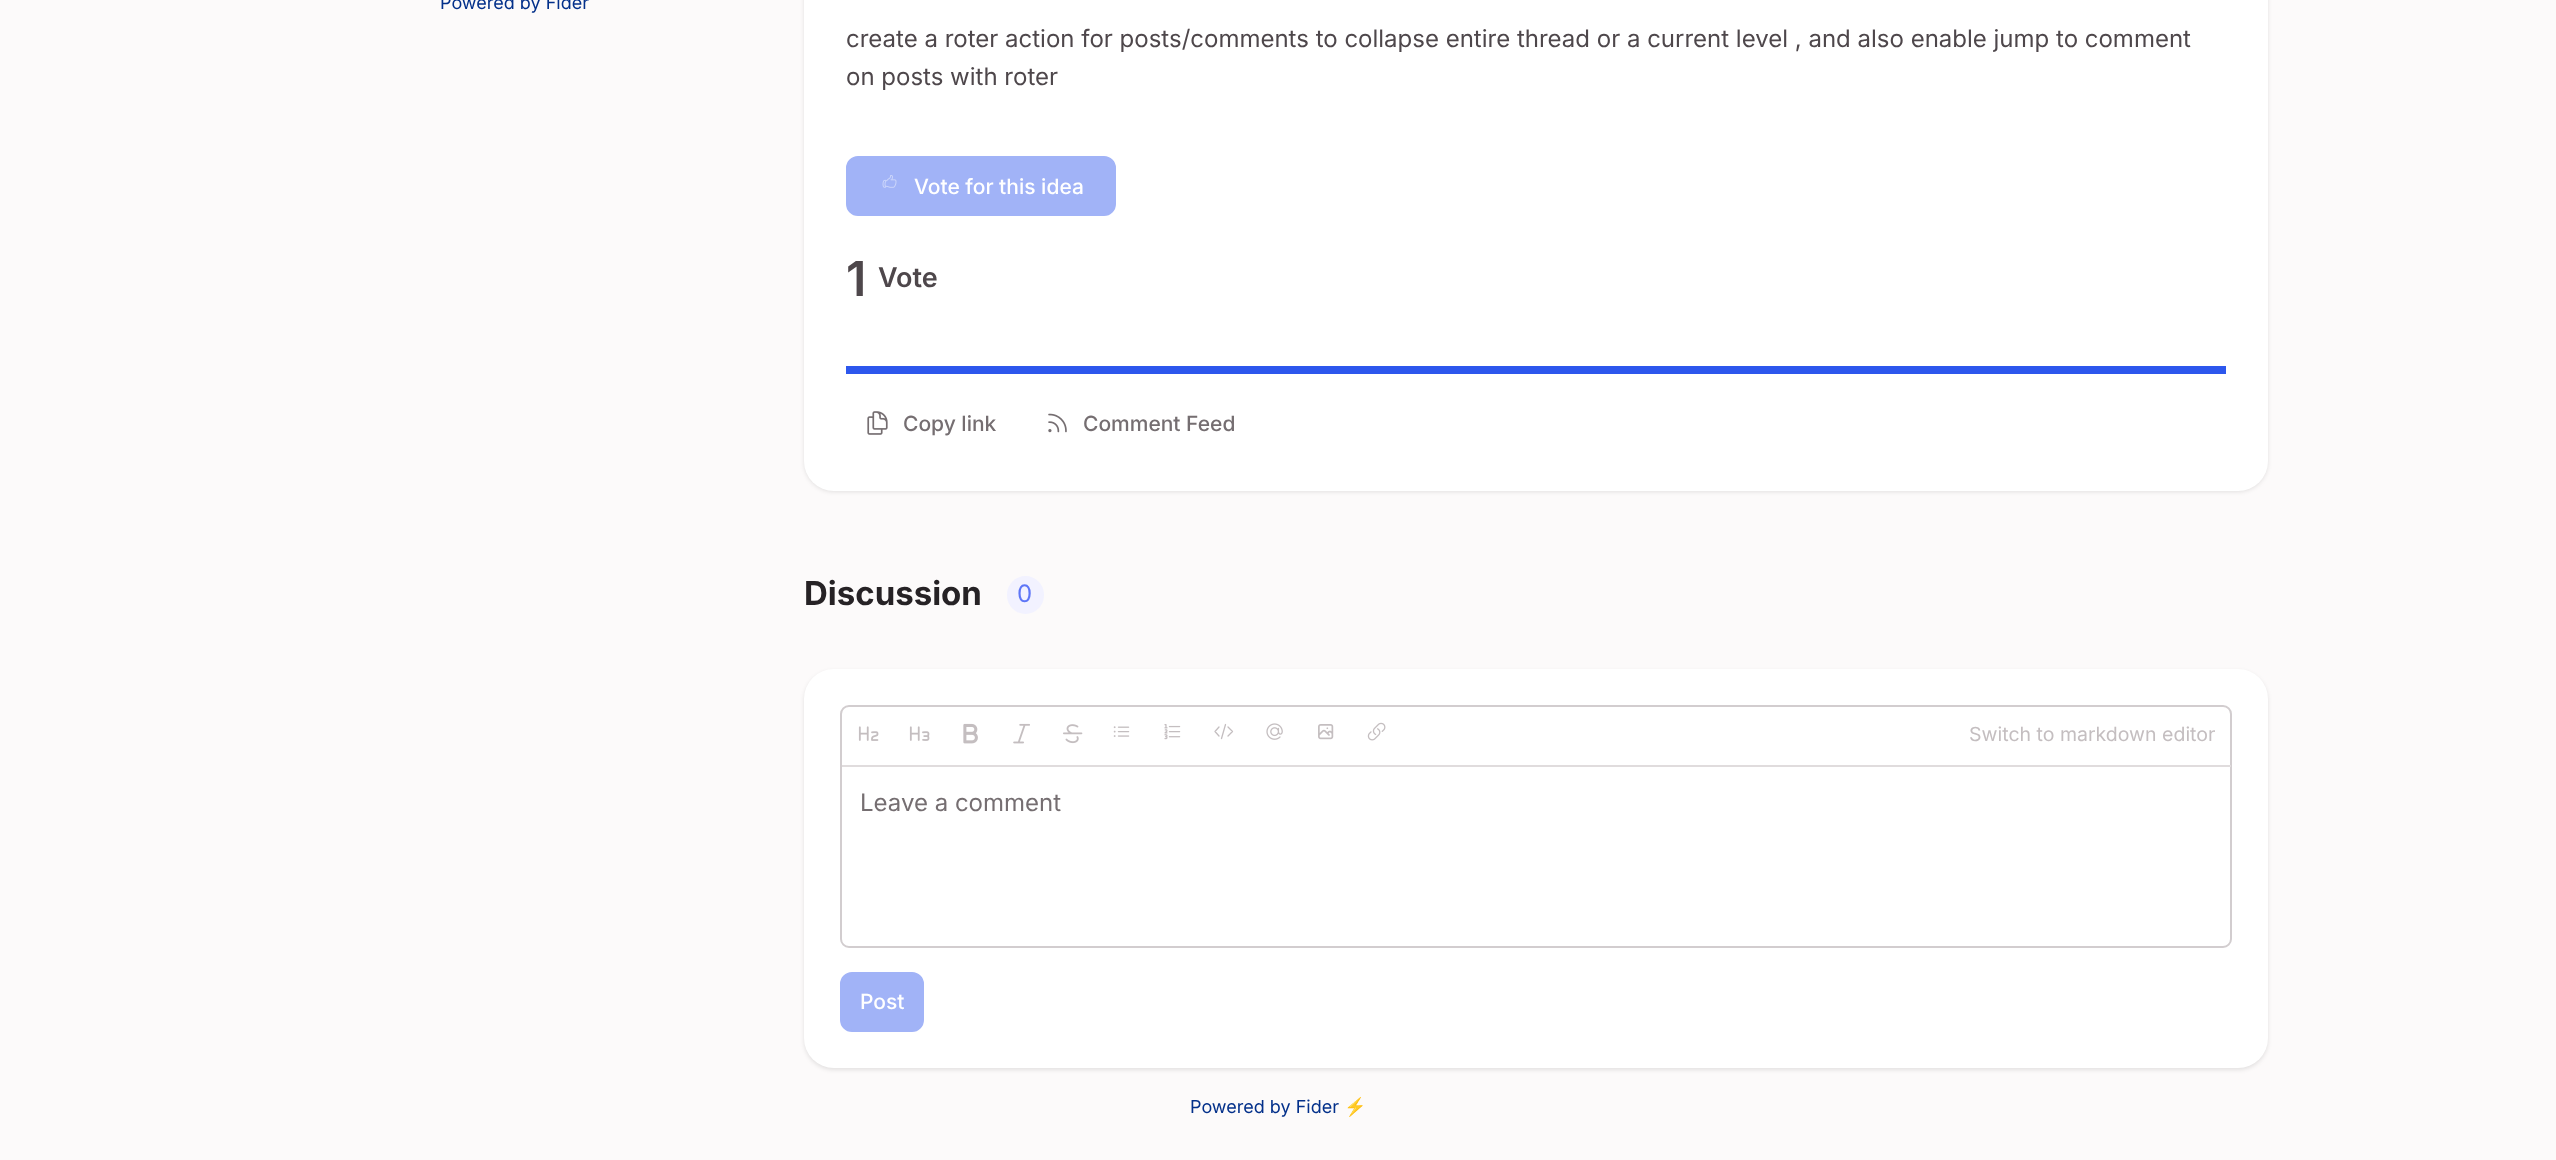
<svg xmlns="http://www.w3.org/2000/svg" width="2556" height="1160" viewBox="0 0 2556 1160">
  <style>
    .t1 { font: 18px Inter; fill: #03308a; }
    .t2 { font: 24px Inter; fill: #4e474b; }
    .t3 { font: 500 21px Inter; fill: #fff; }
    .t4 { font: 600 48px Inter; fill: #4e474b; }
    .t5 { font: 600 27px Inter; fill: #4e474b; }
    .t6 { font: 500 21px Inter; fill: #756e71; }
    .t7 { font: bold 33px Inter; fill: #262225; }
    .t8 { font: 24px Inter; fill: #5e76f7; }
    .t9 { font: 19.5px Inter; fill: #c4bec0; }
    .t10 { font: 24px Inter; fill: #756e71; }
    .t11 { font: 18px Noto Color Emoji; fill: #03308a; }
  </style>
  <rect width="100%" height="100%" fill="#fcfafa"/>
  <text x="440" y="9" class="t1">Powered by Fider</text>
  <rect x="804" y="-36" width="1464" height="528" rx="30" fill="#0000001a" filter="blur(2px)"/>
  <rect x="804" y="-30" width="1464" height="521" rx="30" fill="#fff"/>
  <text x="846" y="47" class="t2">create a roter action for posts/comments to collapse entire thread or a current level , and also enable jump to comment</text>
  <text x="846" y="85" class="t2">on posts with roter</text>
  <rect x="847" y="157" width="268" height="58" rx="11" fill="#a1b3f7" stroke="#a1b3f7" stroke-width="2"/>
  <image x="882" y="175" width="15" height="13" href="images/1.png"/>
  <text x="914" y="194" class="t3">Vote for this idea</text>
  <text x="846" y="296" class="t4">1</text>
  <text x="878" y="287" class="t5">Vote</text>
  <rect x="846" y="366" width="1380" height="8" fill="#2d57ed"/>
  <image x="867" y="411" width="21" height="24" href="images/2.png"/>
  <text x="903" y="431" class="t6">Copy link</text>
  <image x="1048" y="413" width="19" height="20" href="images/3.png"/>
  <text x="1083" y="431" class="t6">Comment Feed</text>
  <text x="804" y="605" class="t7">Discussion</text>
  <rect x="1007" y="576" width="37" height="38" rx="18.5" fill="#f2f2ff"/>
  <text x="1017" y="602" class="t8">0</text>
  <rect x="804" y="671" width="1464" height="399" rx="30" fill="#0000001a" filter="blur(2px)"/>
  <rect x="804" y="669" width="1464" height="399" rx="30" fill="#fff"/>
  <rect x="841" y="706" width="1390" height="241" rx="8" fill="none" stroke="#d2cdcf" stroke-width="2"/>
  <rect x="842" y="765" width="1389" height="2" fill="#e0dcdd"/>
  <image x="858" y="726" width="21" height="15" href="images/4.png"/>
  <image x="909" y="726" width="21" height="15" href="images/5.png"/>
  <image x="963" y="723" width="15" height="21" href="images/6.png"/>
  <image x="1013" y="723" width="17" height="21" href="images/7.png"/>
  <image x="1063" y="724" width="20" height="20" href="images/8.png"/>
  <image x="1113" y="726" width="17" height="11" href="images/9.png"/>
  <image x="1164" y="724" width="17" height="16" href="images/10.png"/>
  <path d="M1228 727L1232.5 731.5L1228 736M1219 736L1215 731.5L1219 727M1225.5 724.5L1221.5 738.5" fill="none" stroke="#c4bec0" stroke-width="1.3" stroke-linecap="round" stroke-linejoin="round"/>
  <image x="1266" y="723" width="17" height="17" href="images/11.png"/>
  <image x="1318" y="724" width="16" height="16" href="images/12.png"/>
  <image x="1367" y="722" width="19" height="19" href="images/13.png"/>
  <text x="1969" y="741" class="t9">Switch to markdown editor</text>
  <text x="860" y="811" class="t10">Leave a comment</text>
  <rect x="841" y="973" width="82" height="58" rx="11" fill="#a1b3f7" stroke="#a1b3f7" stroke-width="2"/>
  <text x="860" y="1009" class="t3">Post</text>
  <text x="1190" y="1113" class="t1">Powered by Fider</text>
  <text x="1344" y="1113" class="t11">⚡</text>
</svg>
